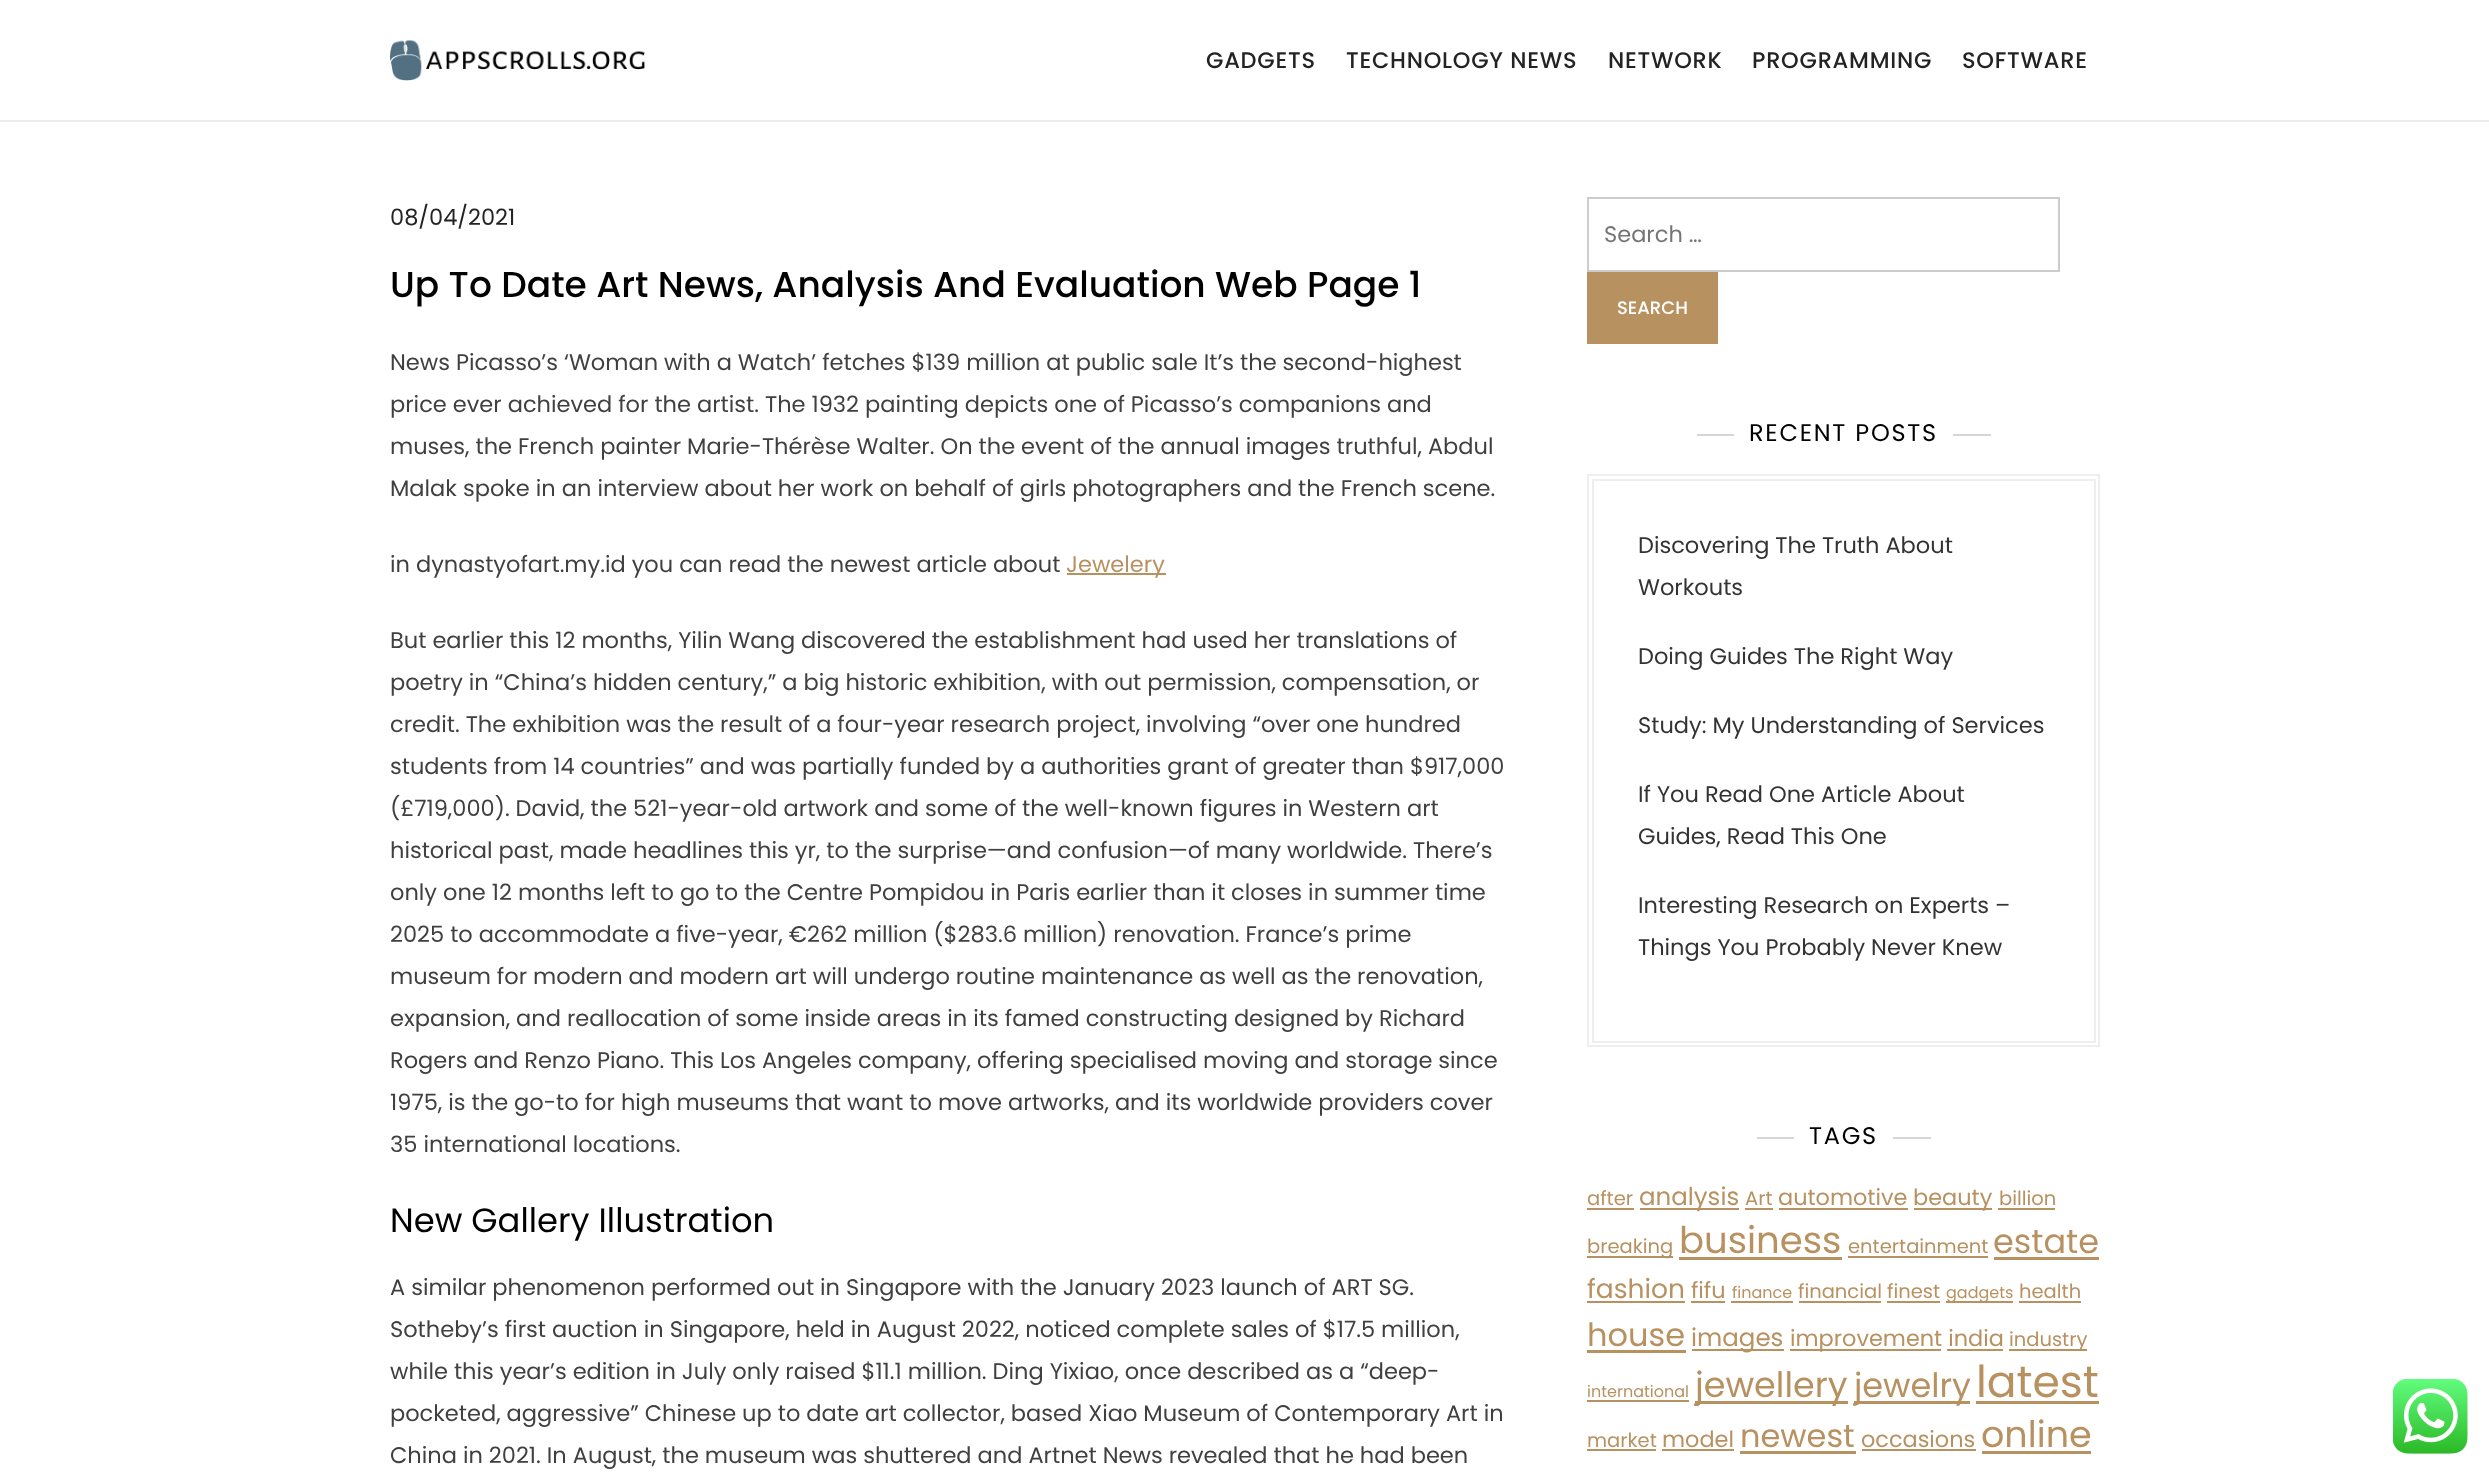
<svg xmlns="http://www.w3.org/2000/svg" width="2489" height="1475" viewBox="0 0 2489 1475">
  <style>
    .t1 { font: 500 22.5px Poppins; letter-spacing: 0.75px; fill: #232323; }
    .t2 { font: 22.5px Poppins; fill: #232323; }
    .t3 { font: 500 36px Poppins; fill: #000; }
    .t4 { font: 22.5px Poppins; fill: #404040; }
    .t5 { font: 22.5px Poppins; fill: #b89161; }
    .t6 { font: 33.75px Poppins; fill: #000; }
    .t7 { font: 22.5px Poppins; fill: #757575; }
    .t8 { font: 500 18px Poppins; fill: #fff; }
    .t9 { font: 24px Poppins; letter-spacing: 1.75px; fill: #000; }
    .t10 { font: 22.5px Poppins; fill: #333; }
    .t11 { font: 19.5px Poppins; fill: #b89161; }
    .t12 { font: 24.5px Poppins; fill: #b89161; }
    .t13 { font: 22.4px Poppins; fill: #b89161; }
    .t14 { font: 37px Poppins; fill: #b89161; }
    .t15 { font: 33.5px Poppins; fill: #b89161; }
    .t16 { font: 26.5px Poppins; fill: #b89161; }
    .t17 { font: 16px Poppins; fill: #b89161; }
    .t18 { font: 32px Poppins; fill: #b89161; }
    .t19 { font: 35px Poppins; fill: #b89161; }
    .t20 { font: 44px Poppins; fill: #b89161; }
    .t21 { font: 36.5px Poppins; fill: #b89161; }
  </style>
  <rect width="100%" height="100%" fill="#fff"/>
  <rect x="0" y="120" width="2489" height="2" fill="#ececec"/>
  <image x="390" y="40" width="255" height="41" href="images/1.png"/>
  <text x="1206" y="68" class="t1">GADGETS</text>
  <text x="1346" y="68" class="t1">TECHNOLOGY NEWS</text>
  <text x="1608" y="68" class="t1">NETWORK</text>
  <text x="1752" y="68" class="t1">PROGRAMMING</text>
  <text x="1962" y="68" class="t1">SOFTWARE</text>
  <text x="390" y="225" class="t2">08/04/2021</text>
  <text x="390" y="297" class="t3">Up To Date Art News, Analysis And Evaluation Web Page 1</text>
  <text x="390" y="370" class="t4">News Picasso’s ‘Woman with a Watch’ fetches $139 million at public sale It’s the second-highest</text>
  <text x="390" y="412" class="t4">price ever achieved for the artist. The 1932 painting depicts one of Picasso’s companions and</text>
  <text x="390" y="454" class="t4">muses, the French painter Marie-Thérèse Walter. On the event of the annual images truthful, Abdul</text>
  <text x="390" y="496" class="t4">Malak spoke in an interview about her work on behalf of girls photographers and the French scene.</text>
  <text x="390" y="572" class="t4">in dynastyofart.my.id you can read the newest article about</text>
  <rect x="1067" y="573" width="99" height="2" fill="#b89161"/>
  <text x="1066" y="572" class="t5">Jewelery</text>
  <text x="390" y="648" class="t4">But earlier this 12 months, Yilin Wang discovered the establishment had used her translations of</text>
  <text x="390" y="690" class="t4">poetry in “China’s hidden century,” a big historic exhibition, with out permission, compensation, or</text>
  <text x="390" y="732" class="t4">credit. The exhibition was the result of a four-year research project, involving “over one hundred</text>
  <text x="390" y="774" class="t4">students from 14 countries” and was partially funded by a authorities grant of greater than $917,000</text>
  <text x="390" y="816" class="t4">(£719,000). David, the 521-year-old artwork and some of the well-known figures in Western art</text>
  <text x="390" y="858" class="t4">historical past, made headlines this yr, to the surprise—and confusion—of many worldwide. There’s</text>
  <text x="390" y="900" class="t4">only one 12 months left to go to the Centre Pompidou in Paris earlier than it closes in summer time</text>
  <text x="390" y="942" class="t4">2025 to accommodate a five-year, €262 million ($283.6 million) renovation. France’s prime</text>
  <text x="390" y="984" class="t4">museum for modern and modern art will undergo routine maintenance as well as the renovation,</text>
  <text x="390" y="1026" class="t4">expansion, and reallocation of some inside areas in its famed constructing designed by Richard</text>
  <text x="390" y="1068" class="t4">Rogers and Renzo Piano. This Los Angeles company, offering specialised moving and storage since</text>
  <text x="390" y="1110" class="t4">1975, is the go-to for high museums that want to move artworks, and its worldwide providers cover</text>
  <text x="390" y="1152" class="t4">35 international locations.</text>
  <text x="390" y="1232" class="t6">New Gallery Illustration</text>
  <text x="390" y="1295" class="t4">A similar phenomenon performed out in Singapore with the January 2023 launch of ART SG.</text>
  <text x="390" y="1337" class="t4">Sotheby’s first auction in Singapore, held in August 2022, noticed complete sales of $17.5 million,</text>
  <text x="390" y="1379" class="t4">while this year’s edition in July only raised $11.1 million. Ding Yixiao, once described as a “deep-</text>
  <text x="390" y="1421" class="t4">pocketed, aggressive” Chinese up to date art collector, based Xiao Museum of Contemporary Art in</text>
  <text x="390" y="1463" class="t4">China in 2021. In August, the museum was shuttered and Artnet News revealed that he had been</text>
  <rect x="1588" y="198" width="471" height="73" fill="none" stroke="#ccc" stroke-width="2"/>
  <text x="1604" y="242" class="t7">Search …</text>
  <rect x="1587" y="272" width="131" height="72" fill="#b89161"/>
  <text x="1617" y="314" class="t8">SEARCH</text>
  <rect x="1697" y="434" width="37" height="2" fill="#d6d6d6"/>
  <text x="1749" y="441" class="t9">RECENT POSTS</text>
  <rect x="1953" y="434" width="38" height="2" fill="#d6d6d6"/>
  <rect x="1588" y="475" width="511" height="571" fill="none" stroke="#eee" stroke-width="2"/>
  <rect x="1593" y="480" width="502" height="562" fill="none" stroke="#eee" stroke-width="2"/>
  <text x="1638" y="553" class="t10">Discovering The Truth About</text>
  <text x="1638" y="595" class="t10">Workouts</text>
  <text x="1638" y="664" class="t10">Doing Guides The Right Way</text>
  <text x="1638" y="733" class="t10">Study: My Understanding of Services</text>
  <text x="1638" y="802" class="t10">If You Read One Article About</text>
  <text x="1638" y="844" class="t10">Guides, Read This One</text>
  <text x="1638" y="913" class="t10">Interesting Research on Experts –</text>
  <text x="1638" y="955" class="t10">Things You Probably Never Knew</text>
  <rect x="1757" y="1137" width="37" height="2" fill="#d6d6d6"/>
  <text x="1809" y="1144" class="t9">TAGS</text>
  <rect x="1893" y="1137" width="38" height="2" fill="#d6d6d6"/>
  <text x="1587" y="1205" class="t11">after</text>
  <rect x="1587" y="1208" width="47" height="2" fill="#b89161"/>
  <rect x="1640" y="1208" width="99" height="2" fill="#b89161"/>
  <text x="1639" y="1205" class="t12">analysis</text>
  <text x="1745" y="1205" class="t11">Art</text>
  <rect x="1745" y="1208" width="28" height="2" fill="#b89161"/>
  <text x="1778" y="1205" class="t13">automotive</text>
  <rect x="1779" y="1208" width="129" height="2" fill="#b89161"/>
  <rect x="1914" y="1208" width="78" height="2" fill="#b89161"/>
  <text x="1913" y="1205" class="t13">beauty</text>
  <text x="1999" y="1205" class="t11">billion</text>
  <rect x="1998" y="1208" width="57" height="2" fill="#b89161"/>
  <rect x="1587" y="1256" width="86" height="2" fill="#b89161"/>
  <text x="1587" y="1253" class="t11">breaking</text>
  <text x="1679" y="1253" class="t14">business</text>
  <rect x="1679" y="1257" width="163" height="3" fill="#b89161"/>
  <text x="1848" y="1253" class="t11">entertainment</text>
  <rect x="1848" y="1256" width="140" height="2" fill="#b89161"/>
  <text x="1993" y="1253" class="t15">estate</text>
  <rect x="1994" y="1257" width="105" height="3" fill="#b89161"/>
  <text x="1587" y="1298" class="t16">fashion</text>
  <rect x="1587" y="1301" width="98" height="2" fill="#b89161"/>
  <text x="1691" y="1298" class="t13">fifu</text>
  <rect x="1691" y="1301" width="34" height="2" fill="#b89161"/>
  <text x="1732" y="1298" class="t17">finance</text>
  <rect x="1731" y="1301" width="62" height="2" fill="#b89161"/>
  <text x="1798" y="1298" class="t11">financial</text>
  <rect x="1799" y="1301" width="82" height="2" fill="#b89161"/>
  <text x="1887" y="1298" class="t11">finest</text>
  <rect x="1887" y="1301" width="53" height="2" fill="#b89161"/>
  <rect x="1946" y="1301" width="67" height="2" fill="#b89161"/>
  <text x="1946" y="1298" class="t17">gadgets</text>
  <text x="2019" y="1298" class="t11">health</text>
  <rect x="2019" y="1301" width="62" height="2" fill="#b89161"/>
  <text x="1587" y="1346" class="t18">house</text>
  <rect x="1587" y="1350" width="99" height="3" fill="#b89161"/>
  <rect x="1692" y="1349" width="92" height="2" fill="#b89161"/>
  <text x="1691" y="1346" class="t12">images</text>
  <rect x="1790" y="1349" width="151" height="2" fill="#b89161"/>
  <text x="1790" y="1346" class="t13">improvement india</text>
  <rect x="2009" y="1349" width="78" height="2" fill="#b89161"/>
  <text x="2009" y="1346" class="t11">industry</text>
  <rect x="1947" y="1349" width="56" height="2" fill="#b89161"/>
  <text x="1587" y="1397" class="t17">international</text>
  <rect x="1587" y="1400" width="102" height="2" fill="#b89161"/>
  <rect x="1695" y="1401" width="153" height="3" fill="#b89161"/>
  <text x="1695" y="1397" class="t19">jewellery</text>
  <rect x="1854" y="1401" width="116" height="3" fill="#b89161"/>
  <text x="1854" y="1397" class="t15">jewelry</text>
  <text x="1976" y="1397" class="t20">latest</text>
  <rect x="1976" y="1401" width="123" height="3" fill="#b89161"/>
  <text x="1587" y="1447" class="t11">market</text>
  <rect x="1587" y="1449" width="69" height="2" fill="#b89161"/>
  <text x="1662" y="1447" class="t13">model</text>
  <rect x="1662" y="1449" width="72" height="2" fill="#b89161"/>
  <text x="1740" y="1447" class="t18">newest</text>
  <rect x="1740" y="1451" width="116" height="3" fill="#b89161"/>
  <text x="1861" y="1447" class="t13">occasions</text>
  <rect x="1862" y="1449" width="114" height="2" fill="#b89161"/>
  <text x="1981" y="1447" class="t21">online</text>
  <rect x="1982" y="1451" width="109" height="3" fill="#b89161"/>
  <image x="2393" y="1379" width="75" height="75" href="images/2.png"/>
</svg>
